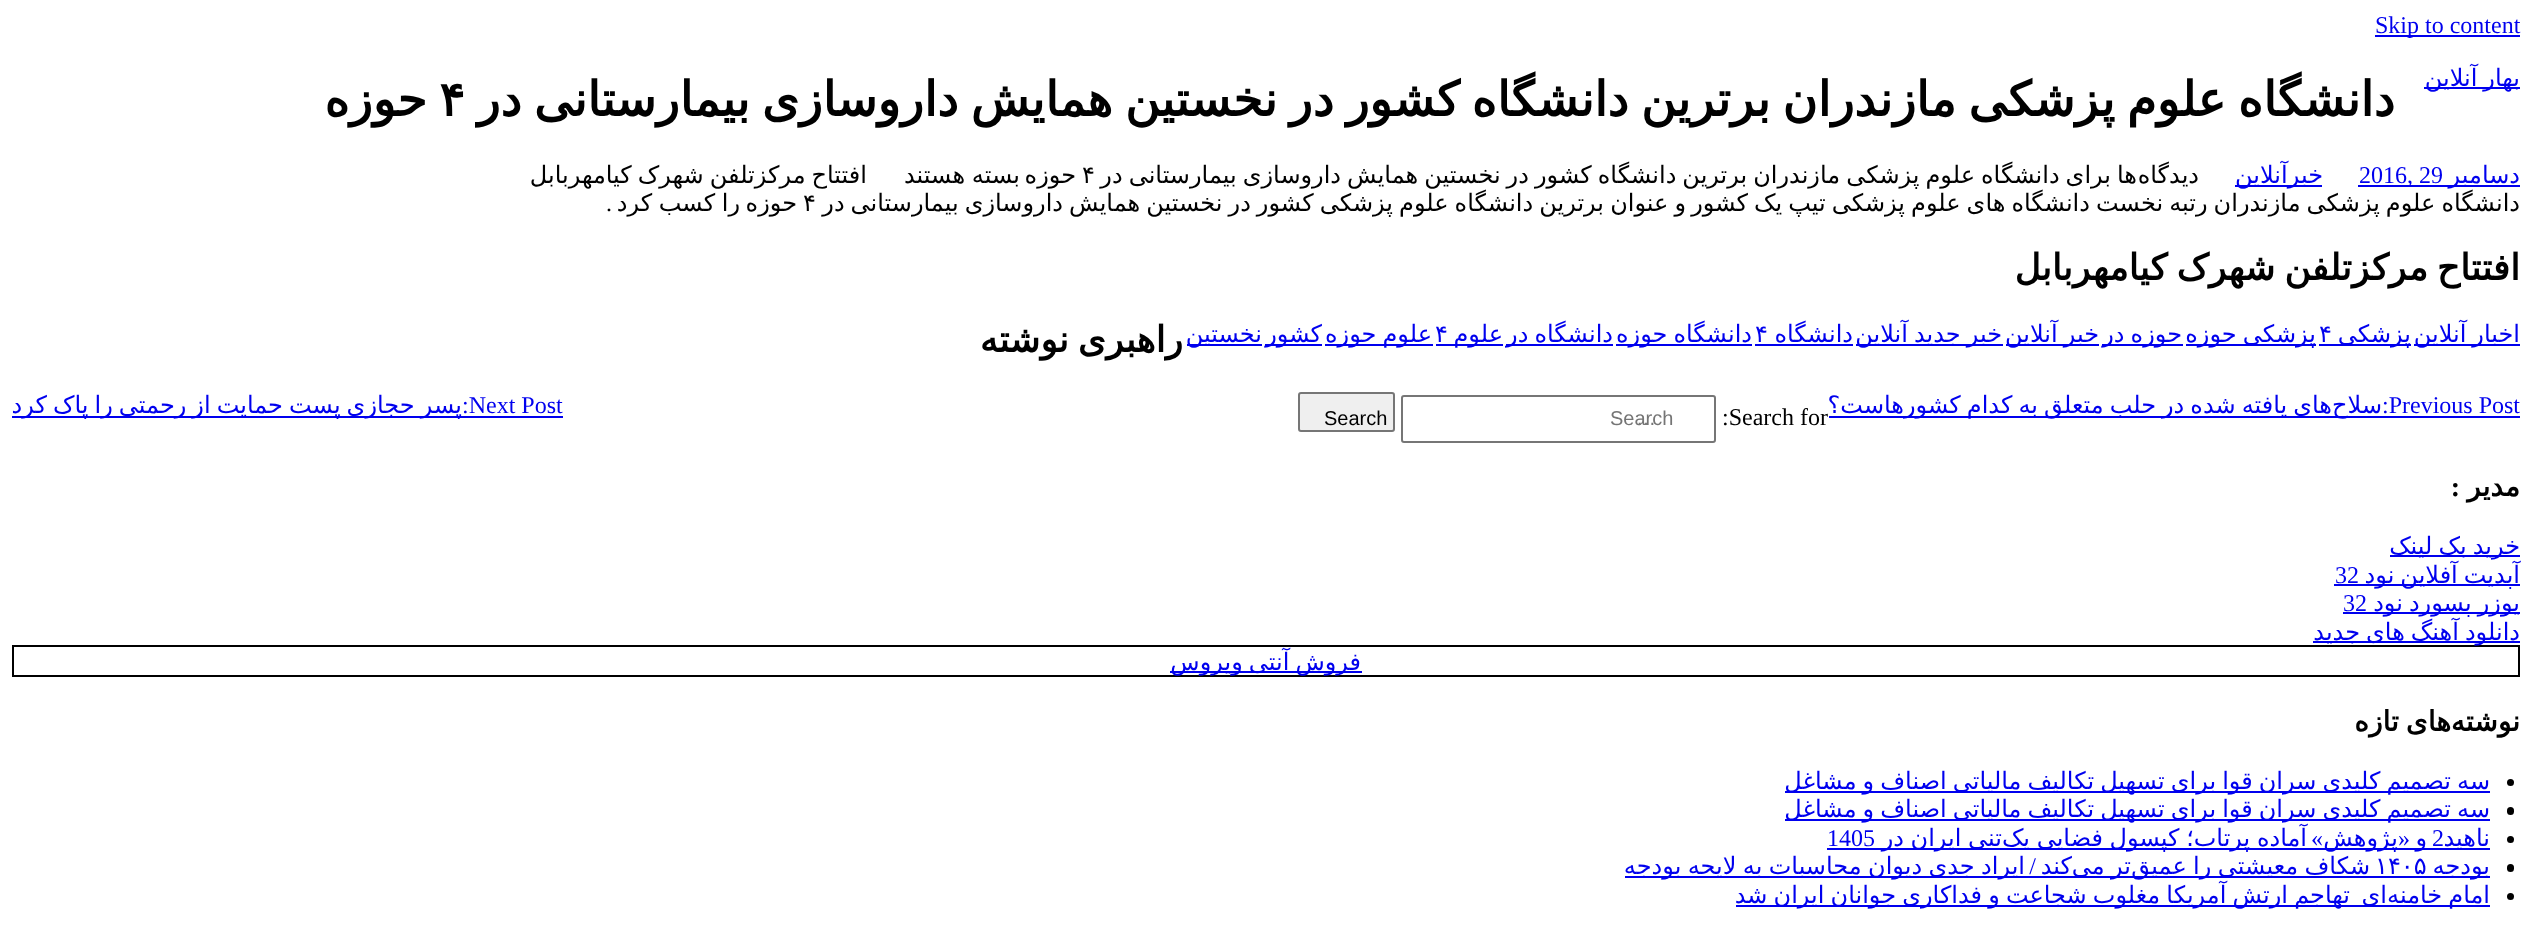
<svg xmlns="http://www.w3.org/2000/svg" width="2532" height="952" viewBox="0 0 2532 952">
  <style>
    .t1 { font: 24px Liberation Serif; fill: #00e; }
    .t2 { font: 24px DejaVu Sans; direction: rtl; fill: #00e; }
    .t3 { font: bold 48px DejaVu Sans; direction: rtl; fill: #000; }
    .t4 { font: bold 48px DejaVu Sans; fill: #000; }
    .t5 { font: 24px DejaVu Sans; direction: rtl; fill: #000; }
    .t6 { font: 24px DejaVu Sans; fill: #000; }
    .t7 { font: 24px Liberation Serif; direction: rtl; fill: #000; }
    .t8 { font: bold 36px DejaVu Sans; direction: rtl; fill: #000; }
    .t9 { font: 24px DejaVu Sans; fill: #00e; }
    .t10 { font: 24px Liberation Serif; fill: #000; }
    .t11 { font: 20px Liberation Sans; fill: #757575; }
    .t12 { font: 20px Liberation Sans; fill: #000; }
    .t13 { font: bold 28px DejaVu Sans; direction: rtl; fill: #000; }
    .t14 { font: bold 28px Liberation Serif; direction: rtl; fill: #000; }
    .t15 { font: 24px Liberation Serif; direction: rtl; fill: #00e; }
  </style>
  <rect width="100%" height="100%" fill="#fff"/>
  <rect x="2375" y="35" width="145" height="2" fill="#00e"/>
  <text x="2375" y="33" class="t1">Skip to content</text>
  <rect x="2424" y="87" width="96" height="2" fill="#00e"/>
  <text x="2520" y="86" word-spacing="-1.6" class="t2">بهار آنلاین</text>
  <text x="2395" y="116" word-spacing="-3.25" class="t3">دانشگاه علوم پزشکی مازندران برترین دانشگاه کشور در نخستین همایش داروسازی بیمارستانی در</text>
  <text x="439" y="116" class="t4">۴</text>
  <text x="427" y="116" class="t3">حوزه</text>
  <rect x="2358" y="185" width="162" height="2" fill="#00e"/>
  <text x="2520" y="183" class="t2">دسامبر</text>
  <text x="2359" y="183" class="t1">2016, 29</text>
  <rect x="2235" y="185" width="87" height="2" fill="#00e"/>
  <text x="2323" y="183" class="t2">خبرآنلاین</text>
  <text x="2199" y="183" class="t5">دیدگاه</text>
  <text x="2137" y="183" class="t5">ها</text>
  <text x="2111" y="183" word-spacing="-1.6" class="t5">برای دانشگاه علوم پزشکی مازندران برترین دانشگاه کشور در نخستین همایش داروسازی بیمارستانی در</text>
  <text x="1082" y="183" class="t6">۴</text>
  <text x="1076" y="183" class="t5">حوزه</text>
  <text x="1020" y="183" word-spacing="-1" class="t5">بسته هستند</text>
  <text x="867" y="183" word-spacing="-1.6" class="t5">افتتاح مرکزتلفن شهرک کیامهربابل</text>
  <text x="2520" y="211" word-spacing="-1.6" class="t5">دانشگاه علوم پزشکی مازندران رتبه نخست دانشگاه های علوم پزشکی تیپ یک کشور</text>
  <text x="1686" y="211" word-spacing="-1.6" class="t5">و عنوان</text>
  <text x="1604" y="211" word-spacing="-1.6" class="t5">برترین دانشگاه علوم پزشکی کشور در نخستین همایش داروسازی بیمارستانی در</text>
  <text x="803" y="211" class="t6">۴</text>
  <text x="797" y="211" class="t5">حوزه</text>
  <text x="740" y="211" word-spacing="-1" class="t5">را کسب کرد</text>
  <text x="612" y="211" class="t7">.</text>
  <text x="2520" y="280" word-spacing="-2.5" class="t8">افتتاح مرکزتلفن شهرک کیامهربابل</text>
  <rect x="2414" y="344" width="106" height="2" fill="#00e"/>
  <text x="2520" y="342" word-spacing="-1.6" class="t2">اخبار آنلاین</text>
  <rect x="2319" y="344" width="92" height="2" fill="#00e"/>
  <text x="2411" y="342" class="t2">پزشکی</text>
  <text x="2319" y="342" class="t9">۴</text>
  <rect x="2186" y="344" width="130" height="2" fill="#00e"/>
  <text x="2316" y="342" word-spacing="-1.6" class="t2">پزشکی حوزه</text>
  <rect x="2102" y="344" width="81" height="2" fill="#00e"/>
  <text x="2182" y="342" word-spacing="-1.6" class="t2">حوزه در</text>
  <rect x="2006" y="344" width="93" height="2" fill="#00e"/>
  <text x="2099" y="342" word-spacing="-1.6" class="t2">خبر آنلاین</text>
  <rect x="1856" y="344" width="147" height="2" fill="#00e"/>
  <text x="2002" y="342" word-spacing="-1.6" class="t2">خبر جدید آنلاین</text>
  <text x="1853" y="342" class="t2">دانشگاه</text>
  <text x="1755" y="342" class="t9">۴</text>
  <rect x="1755" y="344" width="98" height="2" fill="#00e"/>
  <rect x="1616" y="344" width="136" height="2" fill="#00e"/>
  <text x="1752" y="342" word-spacing="-1.6" class="t2">دانشگاه حوزه</text>
  <rect x="1506" y="344" width="107" height="2" fill="#00e"/>
  <text x="1613" y="342" word-spacing="-1.6" class="t2">دانشگاه در</text>
  <rect x="1436" y="344" width="67" height="2" fill="#00e"/>
  <text x="1503" y="342" class="t2">علوم</text>
  <text x="1435" y="342" class="t9">۴</text>
  <rect x="1325" y="344" width="108" height="2" fill="#00e"/>
  <text x="1432" y="342" word-spacing="-1.6" class="t2">علوم حوزه</text>
  <rect x="1265" y="344" width="57" height="2" fill="#00e"/>
  <text x="1322" y="342" class="t2">کشور</text>
  <rect x="1187" y="344" width="75" height="2" fill="#00e"/>
  <text x="1262" y="342" class="t2">نخستین</text>
  <text x="1183" y="352" word-spacing="-2.5" class="t8">راهبری نوشته</text>
  <text x="2382" y="413" class="t1">:Previous Post</text>
  <rect x="1829" y="416" width="691" height="2" fill="#00e"/>
  <text x="2332" y="413" word-spacing="-1.6" class="t2">های یافته شده در حلب متعلق به کدام کشورهاست؟</text>
  <text x="2382" y="413" class="t2">سلاح</text>
  <text x="462" y="413" class="t1">:Next Post</text>
  <rect x="12" y="416" width="551" height="2" fill="#00e"/>
  <text x="462" y="413" word-spacing="-1.6" class="t2">پسر حجازی پست حمایت از رحمتی را پاک کرد</text>
  <text x="1722" y="425" class="t10">:Search for</text>
  <rect x="1402" y="396" width="313" height="46" rx="2" fill="none" stroke="#767676" stroke-width="2"/>
  <text x="1610" y="425" class="t11">Search</text>
  <text x="1636" y="425" class="t11">…</text>
  <rect x="1299" y="393" width="95" height="38" rx="2" fill="#efefef" stroke="#767676" stroke-width="2"/>
  <text x="1324" y="425" class="t12">Search</text>
  <text x="2520" y="496" class="t13">مدیر</text>
  <text x="2460" y="496" class="t14">:</text>
  <rect x="2390" y="555" width="130" height="2" fill="#00e"/>
  <text x="2520" y="554" word-spacing="-1.6" class="t2">خرید بک لینک</text>
  <rect x="2334" y="584" width="186" height="2" fill="#00e"/>
  <text x="2520" y="583" word-spacing="-1.6" class="t2">آپدیت آفلاین نود</text>
  <text x="2335" y="583" class="t1">32</text>
  <rect x="2343" y="612" width="177" height="2" fill="#00e"/>
  <text x="2520" y="611" word-spacing="-1.6" class="t2">یوزر پسورد نود</text>
  <text x="2343" y="611" class="t1">32</text>
  <rect x="2313" y="641" width="207" height="2" fill="#00e"/>
  <rect x="13" y="646" width="2506" height="30" fill="none" stroke="#000" stroke-width="2"/>
  <text x="2520" y="640" word-spacing="-1.6" class="t2">دانلود آهنگ های جدید</text>
  <rect x="1170" y="671" width="192" height="2" fill="#00e"/>
  <text x="1361" y="670" word-spacing="-1.6" class="t2">فروش آنتی ویروس</text>
  <text x="2520" y="731" class="t13">نوشته</text>
  <text x="2451" y="731" word-spacing="-2" class="t13">های تازه</text>
  <circle cx="2510.5" cy="782.5" r="3.5" fill="#000"/>
  <rect x="1785" y="791" width="705" height="2" fill="#00e"/>
  <text x="2490" y="789" word-spacing="-1.6" class="t2">سه تصمیم کلیدی سران قوا برای تسهیل تکالیف مالیاتی اصناف و مشاغل</text>
  <rect x="2507" y="807" width="7" height="8" rx="3.5" fill="#000"/>
  <rect x="1785" y="819" width="705" height="2" fill="#00e"/>
  <text x="2490" y="817" word-spacing="-1.6" class="t2">سه تصمیم کلیدی سران قوا برای تسهیل تکالیف مالیاتی اصناف و مشاغل</text>
  <circle cx="2510.5" cy="839.5" r="3.5" fill="#000"/>
  <rect x="1827" y="848" width="663" height="2" fill="#00e"/>
  <text x="2490" y="846" class="t2">ناهید</text>
  <text x="2432" y="846" class="t1">2</text>
  <text x="2427" y="846" class="t2">و</text>
  <text x="2410" y="846" class="t15">«</text>
  <text x="2398" y="846" class="t2">پژوهش</text>
  <text x="2002" y="846" word-spacing="-1" class="t2">تنی ایران در</text>
  <text x="2307" y="846" word-spacing="-1" class="t2">آماده پرتاب؛ کپسول فضایی یک</text>
  <text x="2323" y="846" class="t15">»</text>
  <text x="1827" y="846" class="t1">1405</text>
  <rect x="2507" y="864" width="7" height="8" rx="3.5" fill="#000"/>
  <rect x="1625" y="876" width="865" height="2" fill="#00e"/>
  <text x="2490" y="874" class="t2">بودجه</text>
  <text x="2375" y="874" class="t9">۱۴۰۵</text>
  <text x="2370" y="874" word-spacing="-1.25" class="t2">شکاف معیشتی را عمیق</text>
  <text x="2131" y="874" word-spacing="-1.25" class="t2">تر می</text>
  <text x="2072" y="874" class="t2">کند</text>
  <text x="2025" y="874" word-spacing="-1.25" class="t2">ایراد جدی دیوان محاسبات به لایحه بودجه</text>
  <text x="2036" y="874" class="t15">/</text>
  <circle cx="2510.5" cy="896.5" r="3.5" fill="#000"/>
  <rect x="1736" y="905" width="754" height="2" fill="#00e"/>
  <text x="2490" y="903" word-spacing="-1.5" class="t2">امام خامنه</text>
  <text x="2387" y="903" class="t2">ای</text>
  <text x="2350" y="903" word-spacing="-1.5" class="t2">تهاجم ارتش آمریکا مغلوب شجاعت و فداکاری جوانان ایران شد</text>
</svg>
